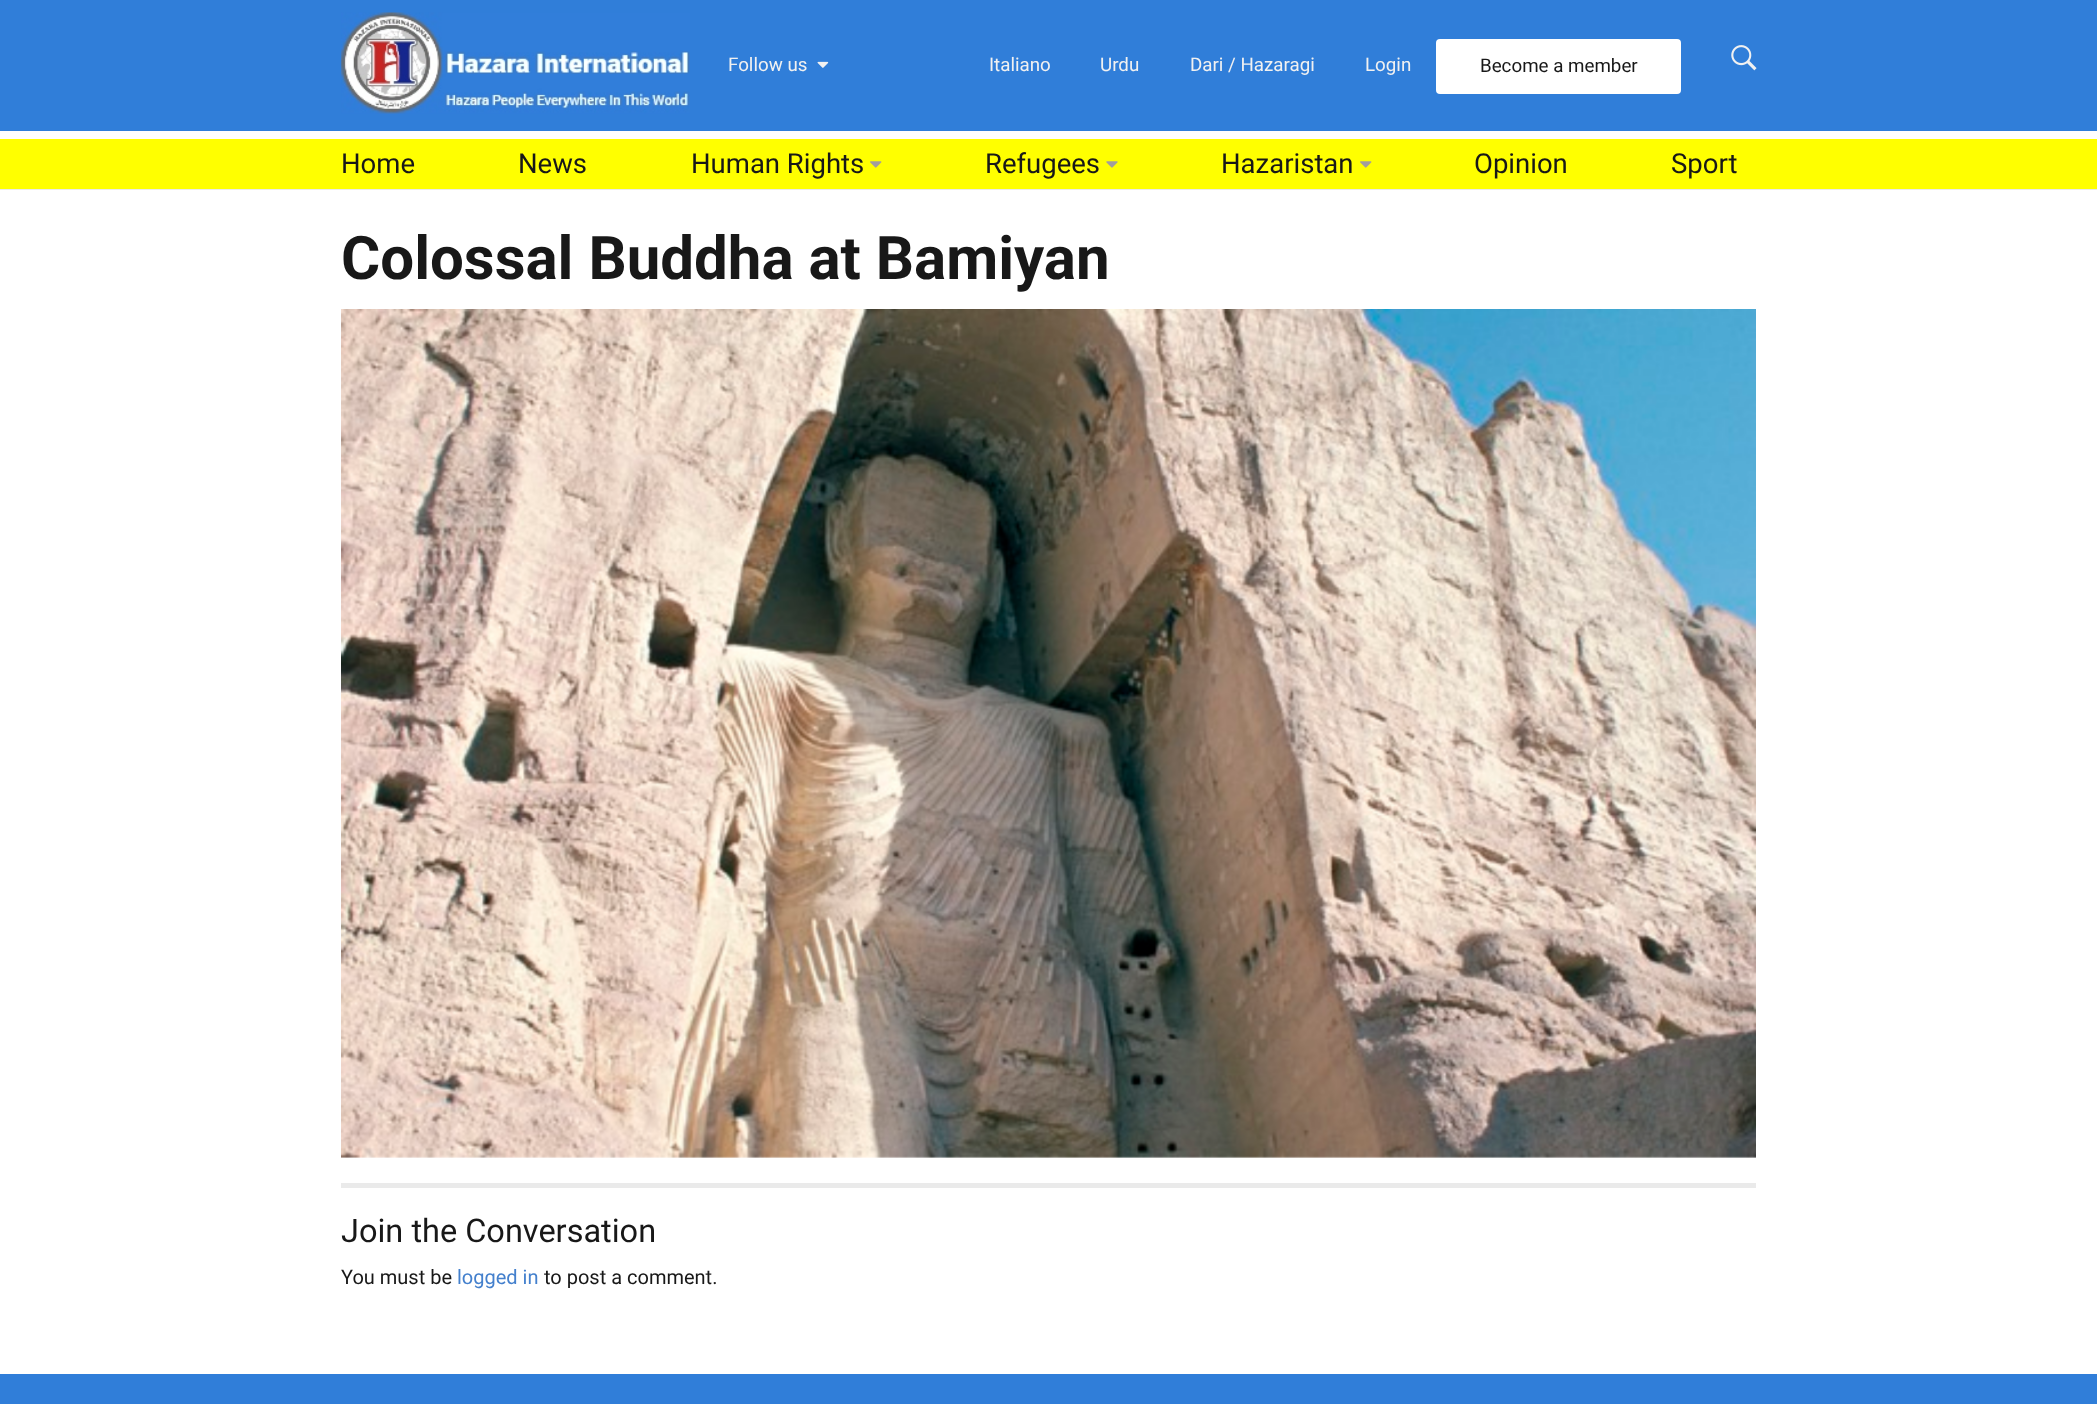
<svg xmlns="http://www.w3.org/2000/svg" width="2097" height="1404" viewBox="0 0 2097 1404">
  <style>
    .t1 { font: 18.75px Roboto; fill: #f1f1f1; }
    .t2 { font: 18.75px Roboto; fill: #181818; }
    .t3 { font: 27.5px Roboto; fill: #181818; }
    .t4 { font: bold 60px Roboto; fill: #181818; }
    .t5 { font: 32.5px Roboto; fill: #181818; }
    .t6 { font: 20px Roboto; fill: #181818; }
    .t7 { font: 20px Roboto; fill: #4480cd; }
  </style>
  <rect width="100%" height="100%" fill="#fff"/>
  <rect x="0" y="0" width="2097" height="131" fill="#307ed9"/>
  <image x="341" y="12" width="349" height="102" href="images/1.png"/>
  <text x="728" y="71" class="t1">Follow us</text>
  <image x="817" y="61" width="12" height="7" href="images/2.png"/>
  <text x="989" y="71" class="t1">Italiano</text>
  <text x="1100" y="71" class="t1">Urdu</text>
  <text x="1190" y="71" class="t1">Dari / Hazaragi</text>
  <text x="1365" y="71" class="t1">Login</text>
  <rect x="1436" y="39" width="245" height="55" rx="4" fill="#fff"/>
  <text x="1480" y="72" class="t2">Become a member</text>
  <image x="1731" y="45" width="26" height="26" href="images/3.png"/>
  <rect x="0" y="139" width="2097" height="50" fill="#ff0"/>
  <rect x="0" y="189" width="2097" height="1" fill="#eaeaea"/>
  <text x="341" y="173" class="t3">Home</text>
  <text x="518" y="173" class="t3">News</text>
  <text x="691" y="173" class="t3">Human Rights</text>
  <image x="870" y="161" width="12" height="7" href="images/4.png"/>
  <text x="985" y="173" class="t3">Refugees</text>
  <image x="1106" y="161" width="12" height="7" href="images/5.png"/>
  <text x="1221" y="173" class="t3">Hazaristan</text>
  <image x="1360" y="161" width="12" height="7" href="images/4.png"/>
  <text x="1474" y="173" class="t3">Opinion</text>
  <text x="1671" y="173" class="t3">Sport</text>
  <text x="341" y="279" class="t4">Colossal Buddha at Bamiyan</text>
  <image x="341" y="309" width="1415" height="849" href="images/6.png"/>
  <rect x="341" y="1183" width="1415" height="5" fill="#eaeaea"/>
  <text x="341" y="1242" class="t5">Join the Conversation</text>
  <text x="341" y="1284" class="t6">You must be</text>
  <text x="457" y="1284" class="t7">logged in</text>
  <text x="544" y="1284" class="t6">to post a comment.</text>
  <rect x="0" y="1374" width="2097" height="30" fill="#307ed9"/>
</svg>
